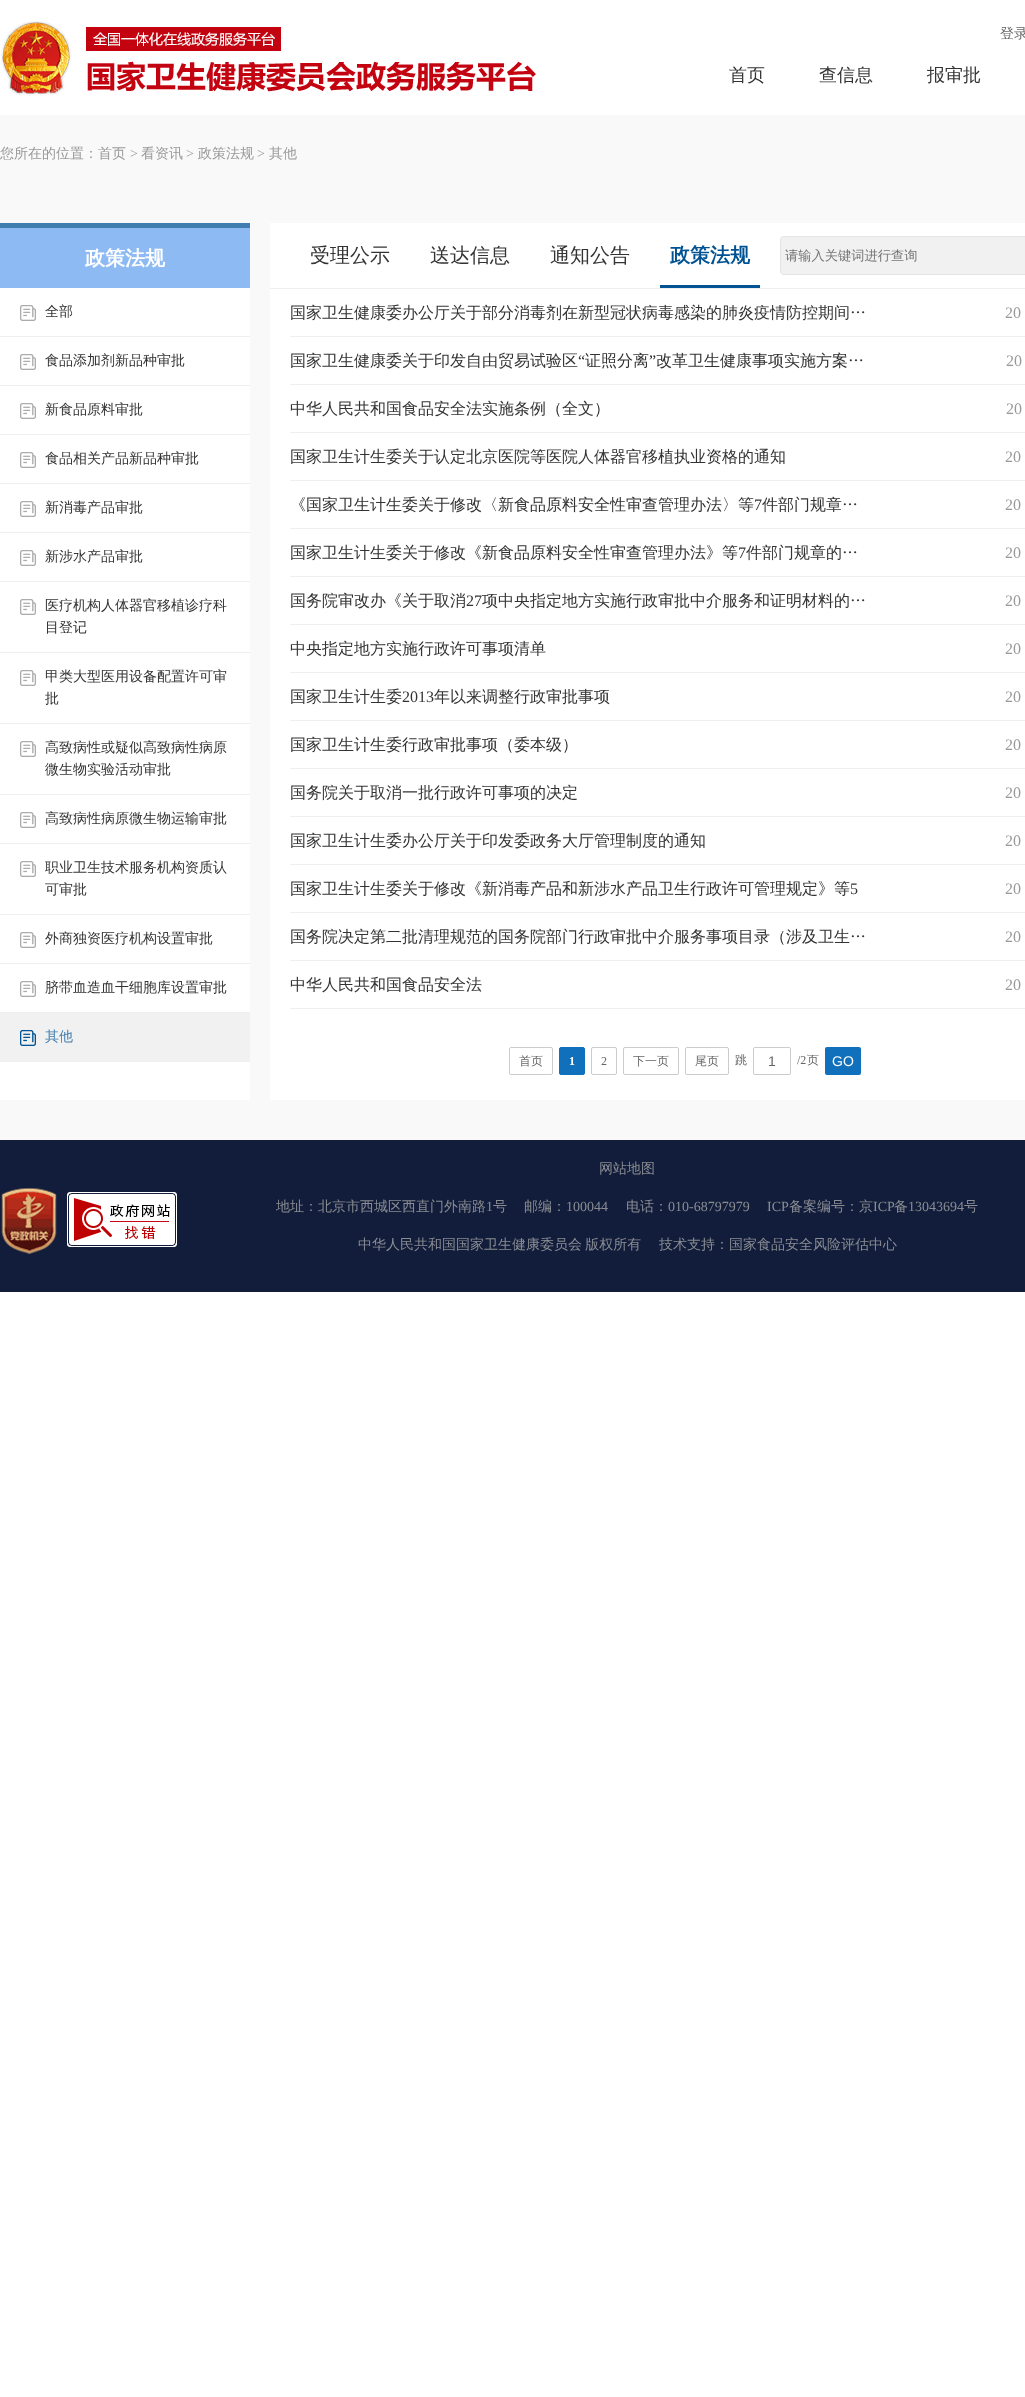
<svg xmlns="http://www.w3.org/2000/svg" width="1025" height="2397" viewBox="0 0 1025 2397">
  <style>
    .t1 { font: 500 14px WenQuanYi Zen Hei; fill: #666; }
    .t2 { font: 500 18px WenQuanYi Zen Hei; fill: #333; }
    .t3 { font: 500 14px WenQuanYi Zen Hei; fill: #999; }
    .t4 { font: 14px Liberation Serif; fill: #999; }
    .t5 { font: bold 20px WenQuanYi Zen Hei; fill: #fff; }
    .t6 { font: 500 14px WenQuanYi Zen Hei; fill: #333; }
    .t7 { font: 500 14px WenQuanYi Zen Hei; fill: #417dae; }
    .t8 { font: 500 20px WenQuanYi Zen Hei; fill: #333; }
    .t9 { font: bold 20px WenQuanYi Zen Hei; fill: #015293; }
    .t10 { font: 500 13.25px WenQuanYi Zen Hei; fill: #757575; }
    .t11 { font: 500 16px WenQuanYi Zen Hei; fill: #333; }
    .t12 { font: 16px Liberation Serif; fill: #999; }
    .t13 { font: 16px Liberation Serif; fill: #333; }
    .t14 { font: 500 12px WenQuanYi Zen Hei; fill: #666; }
    .t15 { font: bold 12px Liberation Serif; fill: #fff; }
    .t16 { font: 12px Liberation Serif; fill: #666; }
    .t17 { font: 14px Liberation Sans; fill: #666; }
    .t18 { font: 14px Liberation Sans; fill: #fff; }
    .t19 { font: 500 14px WenQuanYi Zen Hei; fill: #898c92; }
    .t20 { font: 14px Liberation Serif; fill: #898c92; }
  </style>
  <rect width="100%" height="100%" fill="#fff"/>
  <image x="1" y="21" width="535" height="75" href="images/1.png"/>
  <text x="1000" y="38" class="t1">登录</text>
  <text x="729" y="81" class="t2">首页</text>
  <text x="819" y="81" class="t2">查信息</text>
  <text x="927" y="81" class="t2">报审批</text>
  <rect x="0" y="115" width="1025" height="1025" fill="#f9f9f9"/>
  <text x="0" y="158" class="t3">您所在的位置：首页</text>
  <text x="130" y="158" class="t4">&gt;</text>
  <text x="141" y="158" class="t3">看资讯</text>
  <text x="186" y="158" class="t4">&gt;</text>
  <text x="198" y="158" class="t3">政策法规</text>
  <text x="257" y="158" class="t4">&gt;</text>
  <text x="269" y="158" class="t3">其他</text>
  <rect x="0" y="288" width="250" height="812" fill="#fff"/>
  <rect x="0" y="228" width="250" height="60" fill="#8ebaf3"/>
  <rect x="0" y="223" width="250" height="5" fill="#417dae"/>
  <text x="85" y="265" class="t5">政策法规</text>
  <rect x="0" y="336" width="250" height="1" fill="#efefef"/>
  <image x="20" y="305" width="16" height="16" href="images/2.png"/>
  <text x="45" y="316" class="t6">全部</text>
  <rect x="0" y="385" width="250" height="1" fill="#efefef"/>
  <image x="20" y="354" width="16" height="16" href="images/2.png"/>
  <text x="45" y="365" class="t6">食品添加剂新品种审批</text>
  <rect x="0" y="434" width="250" height="1" fill="#efefef"/>
  <image x="20" y="403" width="16" height="16" href="images/2.png"/>
  <text x="45" y="414" class="t6">新食品原料审批</text>
  <rect x="0" y="483" width="250" height="1" fill="#efefef"/>
  <image x="20" y="452" width="16" height="16" href="images/2.png"/>
  <text x="45" y="463" class="t6">食品相关产品新品种审批</text>
  <rect x="0" y="532" width="250" height="1" fill="#efefef"/>
  <image x="20" y="501" width="16" height="16" href="images/2.png"/>
  <text x="45" y="512" class="t6">新消毒产品审批</text>
  <rect x="0" y="581" width="250" height="1" fill="#efefef"/>
  <image x="20" y="550" width="16" height="16" href="images/2.png"/>
  <text x="45" y="561" class="t6">新涉水产品审批</text>
  <rect x="0" y="652" width="250" height="1" fill="#efefef"/>
  <image x="20" y="599" width="16" height="16" href="images/2.png"/>
  <text x="45" y="610" class="t6">医疗机构人体器官移植诊疗科</text>
  <text x="45" y="632" class="t6">目登记</text>
  <rect x="0" y="723" width="250" height="1" fill="#efefef"/>
  <image x="20" y="670" width="16" height="16" href="images/2.png"/>
  <text x="45" y="681" class="t6">甲类大型医用设备配置许可审</text>
  <text x="45" y="703" class="t6">批</text>
  <rect x="0" y="794" width="250" height="1" fill="#efefef"/>
  <image x="20" y="741" width="16" height="16" href="images/2.png"/>
  <text x="45" y="752" class="t6">高致病性或疑似高致病性病原</text>
  <text x="45" y="774" class="t6">微生物实验活动审批</text>
  <rect x="0" y="843" width="250" height="1" fill="#efefef"/>
  <image x="20" y="812" width="16" height="16" href="images/2.png"/>
  <text x="45" y="823" class="t6">高致病性病原微生物运输审批</text>
  <rect x="0" y="914" width="250" height="1" fill="#efefef"/>
  <image x="20" y="861" width="16" height="16" href="images/2.png"/>
  <text x="45" y="872" class="t6">职业卫生技术服务机构资质认</text>
  <text x="45" y="894" class="t6">可审批</text>
  <rect x="0" y="963" width="250" height="1" fill="#efefef"/>
  <image x="20" y="932" width="16" height="16" href="images/2.png"/>
  <text x="45" y="943" class="t6">外商独资医疗机构设置审批</text>
  <rect x="0" y="1012" width="250" height="1" fill="#efefef"/>
  <image x="20" y="981" width="16" height="16" href="images/2.png"/>
  <text x="45" y="992" class="t6">脐带血造血干细胞库设置审批</text>
  <rect x="0" y="1013" width="250" height="48" fill="#f1f1f1"/>
  <rect x="0" y="1061" width="250" height="1" fill="#efefef"/>
  <image x="20" y="1030" width="16" height="16" href="images/3.png"/>
  <text x="45" y="1041" class="t7">其他</text>
  <rect x="270" y="223" width="755" height="877" fill="#fff"/>
  <rect x="270" y="288" width="755" height="1" fill="#efefef"/>
  <text x="310" y="262" class="t8">受理公示</text>
  <text x="430" y="262" class="t8">送达信息</text>
  <text x="550" y="262" class="t8">通知公告</text>
  <rect x="660" y="285" width="100" height="3" fill="#015393"/>
  <text x="670" y="262" class="t9">政策法规</text>
  <image x="780" y="236" width="245" height="39" href="images/4.png"/>
  <text x="785" y="260" class="t10">请输入关键词进行查询</text>
  <rect x="290" y="336" width="735" height="1" fill="#efefef"/>
  <text x="290" y="318" class="t11">国家卫生健康委办公厅关于部分消毒剂在新型冠状病毒感染的肺炎疫情防控期间…</text>
  <text x="1005" y="318" class="t12">20</text>
  <rect x="290" y="384" width="735" height="1" fill="#efefef"/>
  <text x="290" y="366" class="t11">国家卫生健康委关于印发自由贸易试验区</text>
  <text x="578" y="366" class="t13">“</text>
  <text x="585" y="366" class="t11">证照分离</text>
  <text x="649" y="366" class="t13">”</text>
  <text x="656" y="366" class="t11">改革卫生健康事项实施方案…</text>
  <text x="1006" y="366" class="t12">20</text>
  <rect x="290" y="432" width="735" height="1" fill="#efefef"/>
  <text x="290" y="414" class="t11">中华人民共和国食品安全法实施条例（全文）</text>
  <text x="1006" y="414" class="t12">20</text>
  <rect x="290" y="480" width="735" height="1" fill="#efefef"/>
  <text x="290" y="462" class="t11">国家卫生计生委关于认定北京医院等医院人体器官移植执业资格的通知</text>
  <text x="1005" y="462" class="t12">20</text>
  <rect x="290" y="528" width="735" height="1" fill="#efefef"/>
  <text x="290" y="510" class="t11">《国家卫生计生委关于修改〈新食品原料安全性审查管理办法〉等</text>
  <text x="754" y="510" class="t13">7</text>
  <text x="762" y="510" class="t11">件部门规章…</text>
  <text x="1005" y="510" class="t12">20</text>
  <rect x="290" y="576" width="735" height="1" fill="#efefef"/>
  <text x="290" y="558" class="t11">国家卫生计生委关于修改《新食品原料安全性审查管理办法》等</text>
  <text x="738" y="558" class="t13">7</text>
  <text x="746" y="558" class="t11">件部门规章的…</text>
  <text x="1005" y="558" class="t12">20</text>
  <rect x="290" y="624" width="735" height="1" fill="#efefef"/>
  <text x="290" y="606" class="t11">国务院审改办《关于取消</text>
  <text x="466" y="606" class="t13">27</text>
  <text x="482" y="606" class="t11">项中央指定地方实施行政审批中介服务和证明材料的…</text>
  <text x="1005" y="606" class="t12">20</text>
  <rect x="290" y="672" width="735" height="1" fill="#efefef"/>
  <text x="290" y="654" class="t11">中央指定地方实施行政许可事项清单</text>
  <text x="1005" y="654" class="t12">20</text>
  <rect x="290" y="720" width="735" height="1" fill="#efefef"/>
  <text x="290" y="702" class="t11">国家卫生计生委</text>
  <text x="402" y="702" class="t13">2013</text>
  <text x="434" y="702" class="t11">年以来调整行政审批事项</text>
  <text x="1005" y="702" class="t12">20</text>
  <rect x="290" y="768" width="735" height="1" fill="#efefef"/>
  <text x="290" y="750" class="t11">国家卫生计生委行政审批事项（委本级）</text>
  <text x="1005" y="750" class="t12">20</text>
  <rect x="290" y="816" width="735" height="1" fill="#efefef"/>
  <text x="290" y="798" class="t11">国务院关于取消一批行政许可事项的决定</text>
  <text x="1005" y="798" class="t12">20</text>
  <rect x="290" y="864" width="735" height="1" fill="#efefef"/>
  <text x="290" y="846" class="t11">国家卫生计生委办公厅关于印发委政务大厅管理制度的通知</text>
  <text x="1005" y="846" class="t12">20</text>
  <rect x="290" y="912" width="735" height="1" fill="#efefef"/>
  <text x="290" y="894" class="t11">国家卫生计生委关于修改《新消毒产品和新涉水产品卫生行政许可管理规定》等</text>
  <text x="850" y="894" class="t13">5</text>
  <text x="1005" y="894" class="t12">20</text>
  <rect x="290" y="960" width="735" height="1" fill="#efefef"/>
  <text x="290" y="942" class="t11">国务院决定第二批清理规范的国务院部门行政审批中介服务事项目录（涉及卫生…</text>
  <text x="1005" y="942" class="t12">20</text>
  <rect x="290" y="1008" width="735" height="1" fill="#efefef"/>
  <text x="290" y="990" class="t11">中华人民共和国食品安全法</text>
  <text x="1005" y="990" class="t12">20</text>
  <rect x="509.5" y="1047.5" width="43" height="27" rx="1.5" fill="none" stroke="#ccc"/>
  <text x="519" y="1065" class="t14">首页</text>
  <rect x="559.5" y="1047.5" width="25" height="27" rx="1.5" fill="#1070bc" stroke="#1070bc"/>
  <text x="569" y="1065" class="t15">1</text>
  <rect x="591.5" y="1047.5" width="25" height="27" rx="1.5" fill="none" stroke="#ccc"/>
  <text x="601" y="1065" class="t16">2</text>
  <rect x="623.5" y="1047.5" width="55" height="27" rx="1.5" fill="none" stroke="#ccc"/>
  <text x="633" y="1065" class="t14">下一页</text>
  <rect x="685.5" y="1047.5" width="43" height="27" rx="1.5" fill="none" stroke="#ccc"/>
  <text x="695" y="1065" class="t14">尾页</text>
  <text x="735" y="1064" class="t14">跳</text>
  <rect x="753.5" y="1047.5" width="37" height="27" rx="1.5" fill="none" stroke="#ccc"/>
  <text x="768" y="1066" class="t17">1</text>
  <text x="797" y="1064" class="t16">/2</text>
  <text x="807" y="1064" class="t14">页</text>
  <rect x="825" y="1047" width="36" height="28" rx="2" fill="#1070bc"/>
  <text x="832" y="1066" class="t18">GO</text>
  <rect x="0" y="1140" width="1025" height="152" fill="#121d3b"/>
  <image x="1" y="1188" width="56" height="67" href="images/5.png"/>
  <image x="67" y="1192" width="110" height="55" href="images/6.png"/>
  <text x="599" y="1173" class="t19">网站地图</text>
  <text x="276" y="1211" class="t19">地址：北京市西城区西直门外南路</text>
  <text x="486" y="1211" class="t20">1</text>
  <text x="493" y="1211" class="t19">号</text>
  <text x="524" y="1211" class="t19">邮编：</text>
  <text x="566" y="1211" class="t20">100044</text>
  <text x="626" y="1211" class="t19">电话：</text>
  <text x="668" y="1211" class="t20">010-68797979</text>
  <text x="767" y="1211" class="t20">ICP</text>
  <text x="789" y="1211" class="t19">备案编号：京</text>
  <text x="873" y="1211" class="t20">ICP</text>
  <text x="894" y="1211" class="t19">备</text>
  <text x="908" y="1211" class="t20">13043694</text>
  <text x="964" y="1211" class="t19">号</text>
  <text x="358" y="1249" word-spacing="-1" class="t19">中华人民共和国国家卫生健康委员会 版权所有</text>
  <text x="659" y="1249" class="t19">技术支持：国家食品安全风险评估中心</text>
</svg>
